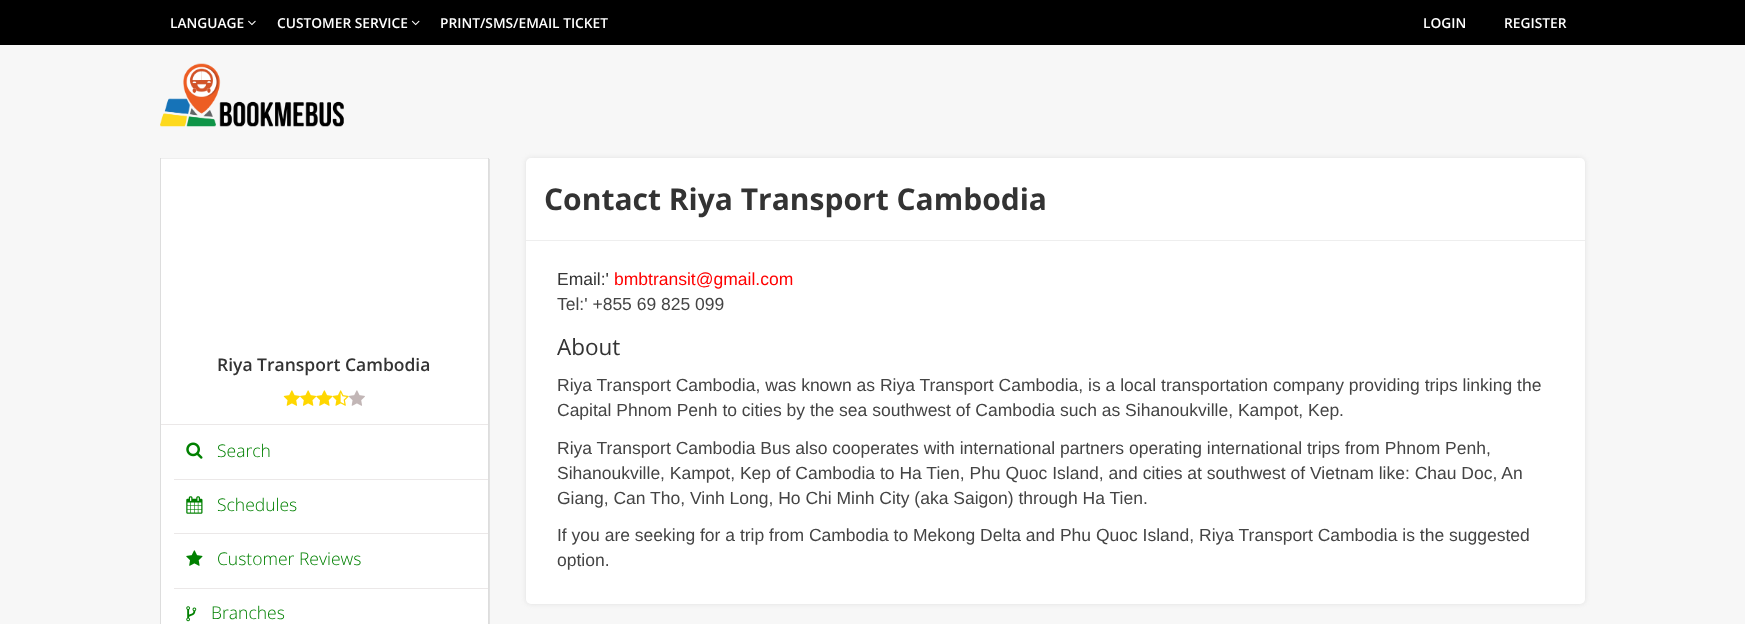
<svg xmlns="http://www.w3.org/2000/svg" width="1745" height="624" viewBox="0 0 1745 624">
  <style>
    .t1 { font: 600 13.75px Open Sans; fill: #fff; }
    .t2 { font: 600 17.5px Open Sans; fill: #333; }
    .t3 { font: 300 17.5px Open Sans; fill: #008000; }
    .t4 { font: bold 30px Open Sans; fill: #333; }
    .t5 { font: 17.5px Liberation Sans; fill: #333; }
    .t6 { font: 17.5px Liberation Sans; fill: #f00; }
    .t7 { font: 17.5px Liberation Sans; fill: #444; }
    .t8 { font: 22.5px Open Sans; fill: #333; }
  </style>
  <rect width="100%" height="100%" fill="#f7f7f7"/>
  <rect x="0" y="0" width="1745" height="45" fill="#000"/>
  <text x="170" y="28" class="t1">LANGUAGE</text>
  <image x="248" y="20" width="8" height="6" href="images/1.png"/>
  <text x="277" y="28" class="t1">CUSTOMER SERVICE</text>
  <image x="411" y="20" width="9" height="6" href="images/2.png"/>
  <text x="440" y="28" class="t1">PRINT/SMS/EMAIL TICKET</text>
  <text x="1423" y="28" class="t1">LOGIN</text>
  <text x="1504" y="28" class="t1">REGISTER</text>
  <image x="160" y="63" width="184" height="64" href="images/3.png"/>
  <rect x="161" y="159" width="329" height="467" fill="#cccccc80" filter="blur(0.5px)"/>
  <rect x="161" y="159" width="327" height="465" fill="#fff"/>
  <rect x="160" y="158" width="329" height="1" fill="#eee"/>
  <rect x="488" y="158" width="1" height="466" fill="#ddd"/>
  <rect x="160" y="158" width="1" height="466" fill="#ddd"/>
  <rect x="161" y="424" width="327" height="1" fill="#ebe8e8"/>
  <text x="217" y="371" class="t2">Riya Transport Cambodia</text>
  <image x="283" y="390" width="17" height="16" href="images/4.png"/>
  <image x="300" y="390" width="17" height="16" href="images/5.png"/>
  <image x="316" y="390" width="17" height="16" href="images/6.png"/>
  <image x="332" y="390" width="17" height="16" href="images/7.png"/>
  <image x="348" y="390" width="17" height="16" href="images/8.png"/>
  <rect x="174" y="479" width="314" height="1" fill="#ebe8e8"/>
  <image x="186" y="442" width="17" height="17" href="images/9.png"/>
  <text x="217" y="457" class="t3">Search</text>
  <rect x="174" y="533" width="314" height="1" fill="#ebe8e8"/>
  <image x="186" y="496" width="17" height="18" href="images/10.png"/>
  <text x="217" y="511" class="t3">Schedules</text>
  <rect x="174" y="588" width="314" height="1" fill="#ebe8e8"/>
  <image x="186" y="550" width="17" height="16" href="images/11.png"/>
  <text x="217" y="565" class="t3">Customer Reviews</text>
  <image x="186" y="606" width="11" height="16" href="images/12.png"/>
  <text x="211" y="619" class="t3">Branches</text>
  <rect x="526" y="158" width="1059" height="446" rx="5" fill="#cccccc80" filter="blur(2.5px)"/>
  <rect x="526" y="158" width="1059" height="446" rx="5" fill="#fff"/>
  <text x="544" y="210" class="t4">Contact Riya Transport Cambodia</text>
  <rect x="526" y="240" width="1059" height="1" fill="#eee"/>
  <text x="557" y="285" class="t5">Email:'</text>
  <text x="614" y="285" class="t6">bmbtransit@gmail.com</text>
  <text x="557" y="310" class="t7">Tel:' +855 69 825 099</text>
  <text x="557" y="355" class="t8">About</text>
  <text x="557" y="391" class="t7">Riya Transport Cambodia, was known as Riya Transport Cambodia, is a local transportation company providing trips linking the</text>
  <text x="557" y="416" class="t7">Capital Phnom Penh to cities by the sea southwest of Cambodia such as Sihanoukville, Kampot, Kep.</text>
  <text x="557" y="454" class="t7">Riya Transport Cambodia Bus also cooperates with international partners operating international trips from Phnom Penh,</text>
  <text x="557" y="479" class="t7">Sihanoukville, Kampot, Kep of Cambodia to Ha Tien, Phu Quoc Island, and cities at southwest of Vietnam like: Chau Doc, An</text>
  <text x="557" y="504" class="t7">Giang, Can Tho, Vinh Long, Ho Chi Minh City (aka Saigon) through Ha Tien.</text>
  <text x="557" y="541" class="t7">If you are seeking for a trip from Cambodia to Mekong Delta and Phu Quoc Island, Riya Transport Cambodia is the suggested</text>
  <text x="557" y="566" class="t7">option.</text>
</svg>
